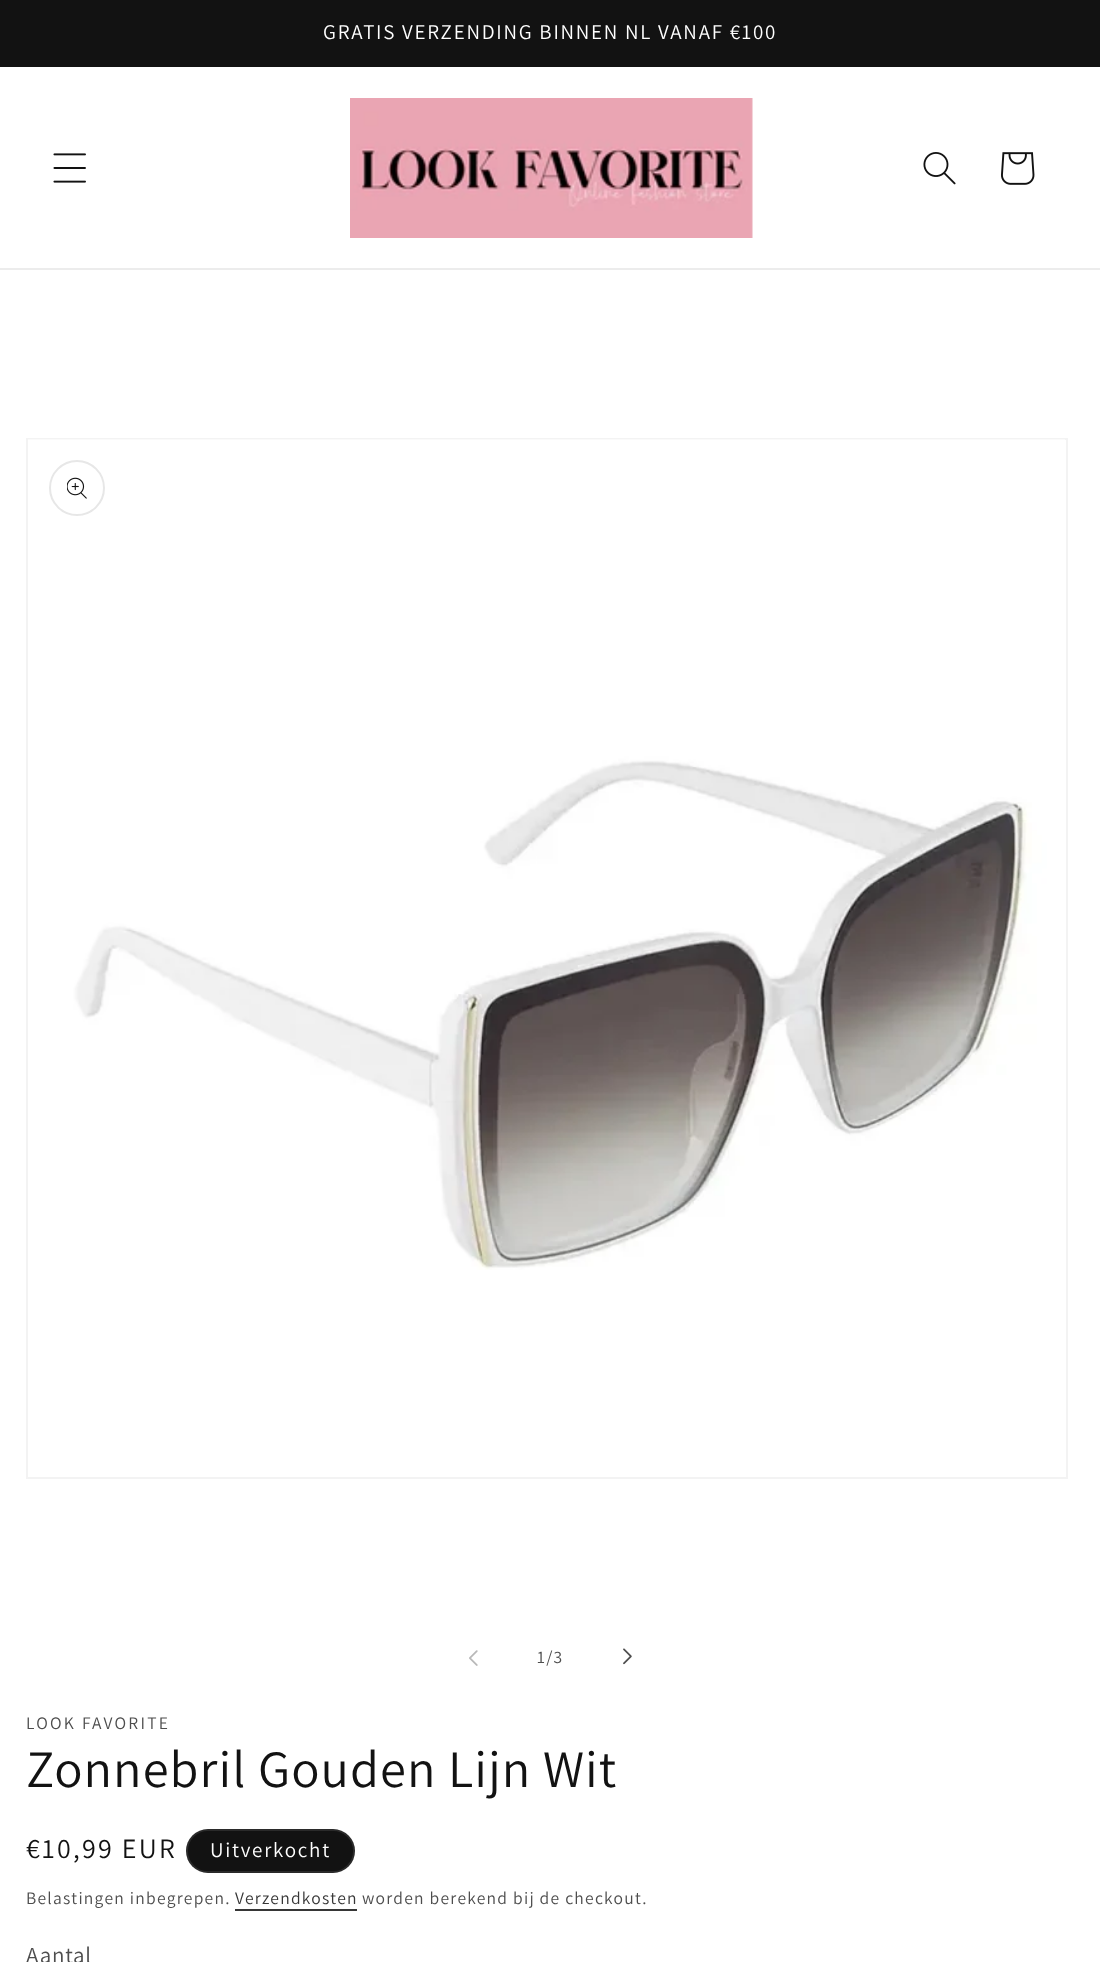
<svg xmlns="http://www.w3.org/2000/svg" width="1100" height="1962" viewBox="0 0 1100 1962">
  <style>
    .t1 { font: 21px Assistant; letter-spacing: 1.75px; fill: #fff; }
    .t2 { font: 17.5px Assistant; letter-spacing: 1.25px; fill: #4d4d4d; }
    .t3 { font: 17.5px Assistant; letter-spacing: 2.25px; fill: #4d4d4d; }
    .t4 { font: 52.5px Assistant; letter-spacing: 1.05px; fill: #121212; }
    .t5 { font: 28px Assistant; letter-spacing: 2.25px; fill: #121212; }
    .t6 { font: 17.5px Assistant; letter-spacing: 1.25px; fill: #363636; }
    .t7 { font: 23px Assistant; letter-spacing: 0.75px; fill: #4d4d4d; }
  </style>
  <rect width="100%" height="100%" fill="#fff"/>
  <rect x="0" y="0" width="1100" height="67" fill="#121212"/>
  <text x="323" y="39" class="t1">GRATIS VERZENDING BINNEN NL VANAF €100</text>
  <rect x="0" y="268" width="1100" height="2" fill="#ececec"/>
  <image x="53" y="153" width="33" height="30" href="images/1.png"/>
  <image x="350" y="98" width="403" height="140" href="images/2.png"/>
  <image x="923" y="152" width="33" height="33" href="images/3.png"/>
  <image x="1001" y="152" width="34" height="33" href="images/4.png"/>
  <rect x="27" y="439" width="1040" height="1039" fill="none" stroke="#f3f3f3" stroke-width="2"/>
  <image x="28" y="439" width="1037" height="831" href="images/5.png"/>
  <circle cx="77" cy="488" r="27" fill="none" stroke="#e7e7e7" stroke-width="2"/>
  <image x="67" y="477" width="20" height="22" href="images/6.png"/>
  <image x="469" y="1650" width="9" height="16" href="images/7.png"/>
  <text x="537" y="1663" class="t2">1/3</text>
  <image x="623" y="1648" width="9" height="17" href="images/8.png"/>
  <text x="26" y="1729" class="t3">LOOK FAVORITE</text>
  <text x="26" y="1787" class="t4">Zonnebril Gouden Lijn Wit</text>
  <text x="26" y="1858" class="t5">€10,99 EUR</text>
  <rect x="186" y="1829" width="169" height="44" rx="22" fill="#121212"/>
  <rect x="187" y="1830" width="167" height="42" rx="21" fill="none" stroke="#ffffff1a" stroke-width="2"/>
  <text x="210" y="1857" class="t1">Uitverkocht</text>
  <text x="26" y="1904" class="t2">Belastingen inbegrepen.</text>
  <text x="235" y="1904" class="t6">Verzendkosten</text>
  <rect x="235" y="1909" width="122" height="2" fill="#363636"/>
  <text x="362" y="1904" class="t2">worden berekend bij de checkout.</text>
  <text x="26" y="1963" class="t7">Aantal</text>
</svg>
